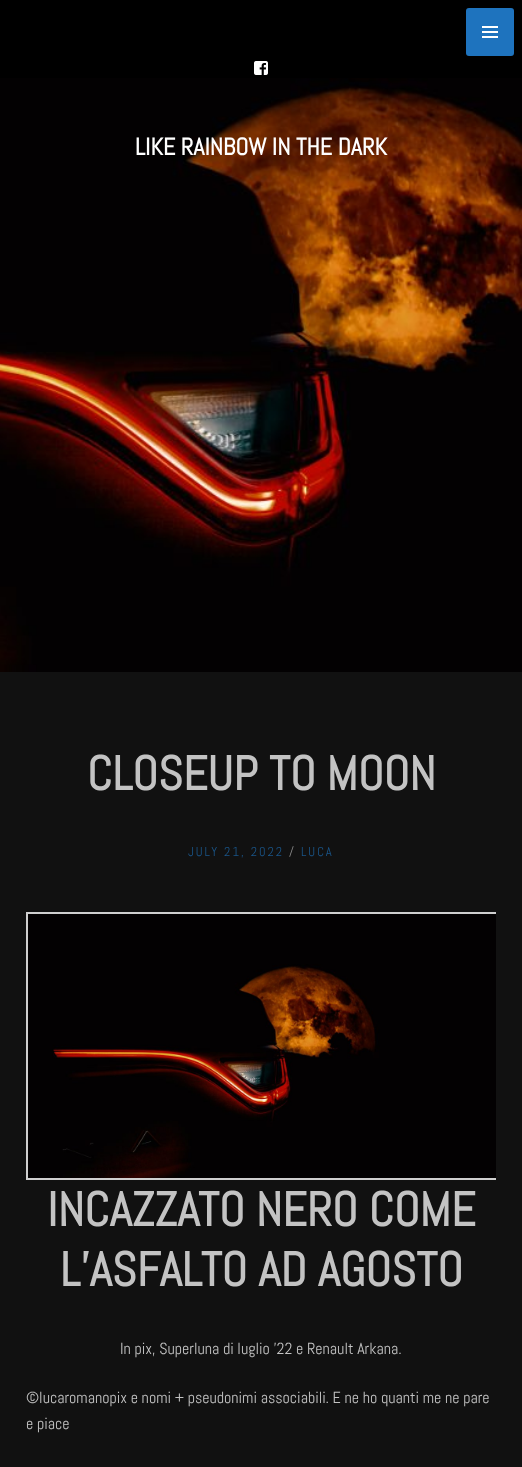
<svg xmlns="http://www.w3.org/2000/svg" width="522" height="1467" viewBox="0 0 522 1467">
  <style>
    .t1 { font: bold 24px Abel; fill: #fff; }
    .t2 { font: bold 48px Abel; fill: #c3c3c3; }
    .t3 { font: 12.75px Abel; letter-spacing: 2px; fill: #1a568a; }
    .t4 { font: 12.75px Abel; letter-spacing: 2px; fill: #8e8e8e; }
    .t5 { font: 16px Abel; fill: #c3c3c3; }
  </style>
  <defs>
    <clipPath id="clip1"><rect x="26" y="912" width="470" height="268"/></clipPath>
  </defs>
  <rect width="100%" height="100%" fill="#111"/>
  <rect x="0" y="0" width="522" height="78" fill="#000"/>
  <image x="0" y="78" width="522" height="594" href="images/1.png"/>
  <rect x="466" y="8" width="48" height="48" rx="3" fill="#1e73be"/>
  <image x="482" y="26" width="16" height="12" href="images/2.png"/>
  <image x="254" y="61" width="14" height="14" href="images/3.png"/>
  <text x="135" y="155" class="t1">LIKE RAINBOW IN THE DARK</text>
  <text x="87" y="790" class="t2">CLOSEUP TO MOON</text>
  <text x="188" y="856" class="t3">JULY 21, 2022</text>
  <text x="289" y="856" class="t4">/</text>
  <text x="301" y="856" class="t3">LUCA</text>
  <rect x="28" y="914" width="1" height="264" fill="#030102"/>
  <g clip-path="url(#clip1)">
    <rect x="27" y="913" width="472" height="266" fill="none" stroke="#cfcfcf" stroke-width="2"/>
  </g>
  <image x="29" y="914" width="467" height="264" href="images/4.png"/>
  <text x="47" y="1226" class="t2">INCAZZATO NERO COME</text>
  <text x="60" y="1286" class="t2">L’ASFALTO AD AGOSTO</text>
  <text x="120" y="1354" class="t5">In pix, Superluna di luglio ’22 e Renault Arkana.</text>
  <text x="26" y="1403" class="t5">©lucaromanopix e nomi + pseudonimi associabili. E ne ho quanti me ne pare</text>
  <text x="26" y="1429" class="t5">e piace</text>
</svg>
